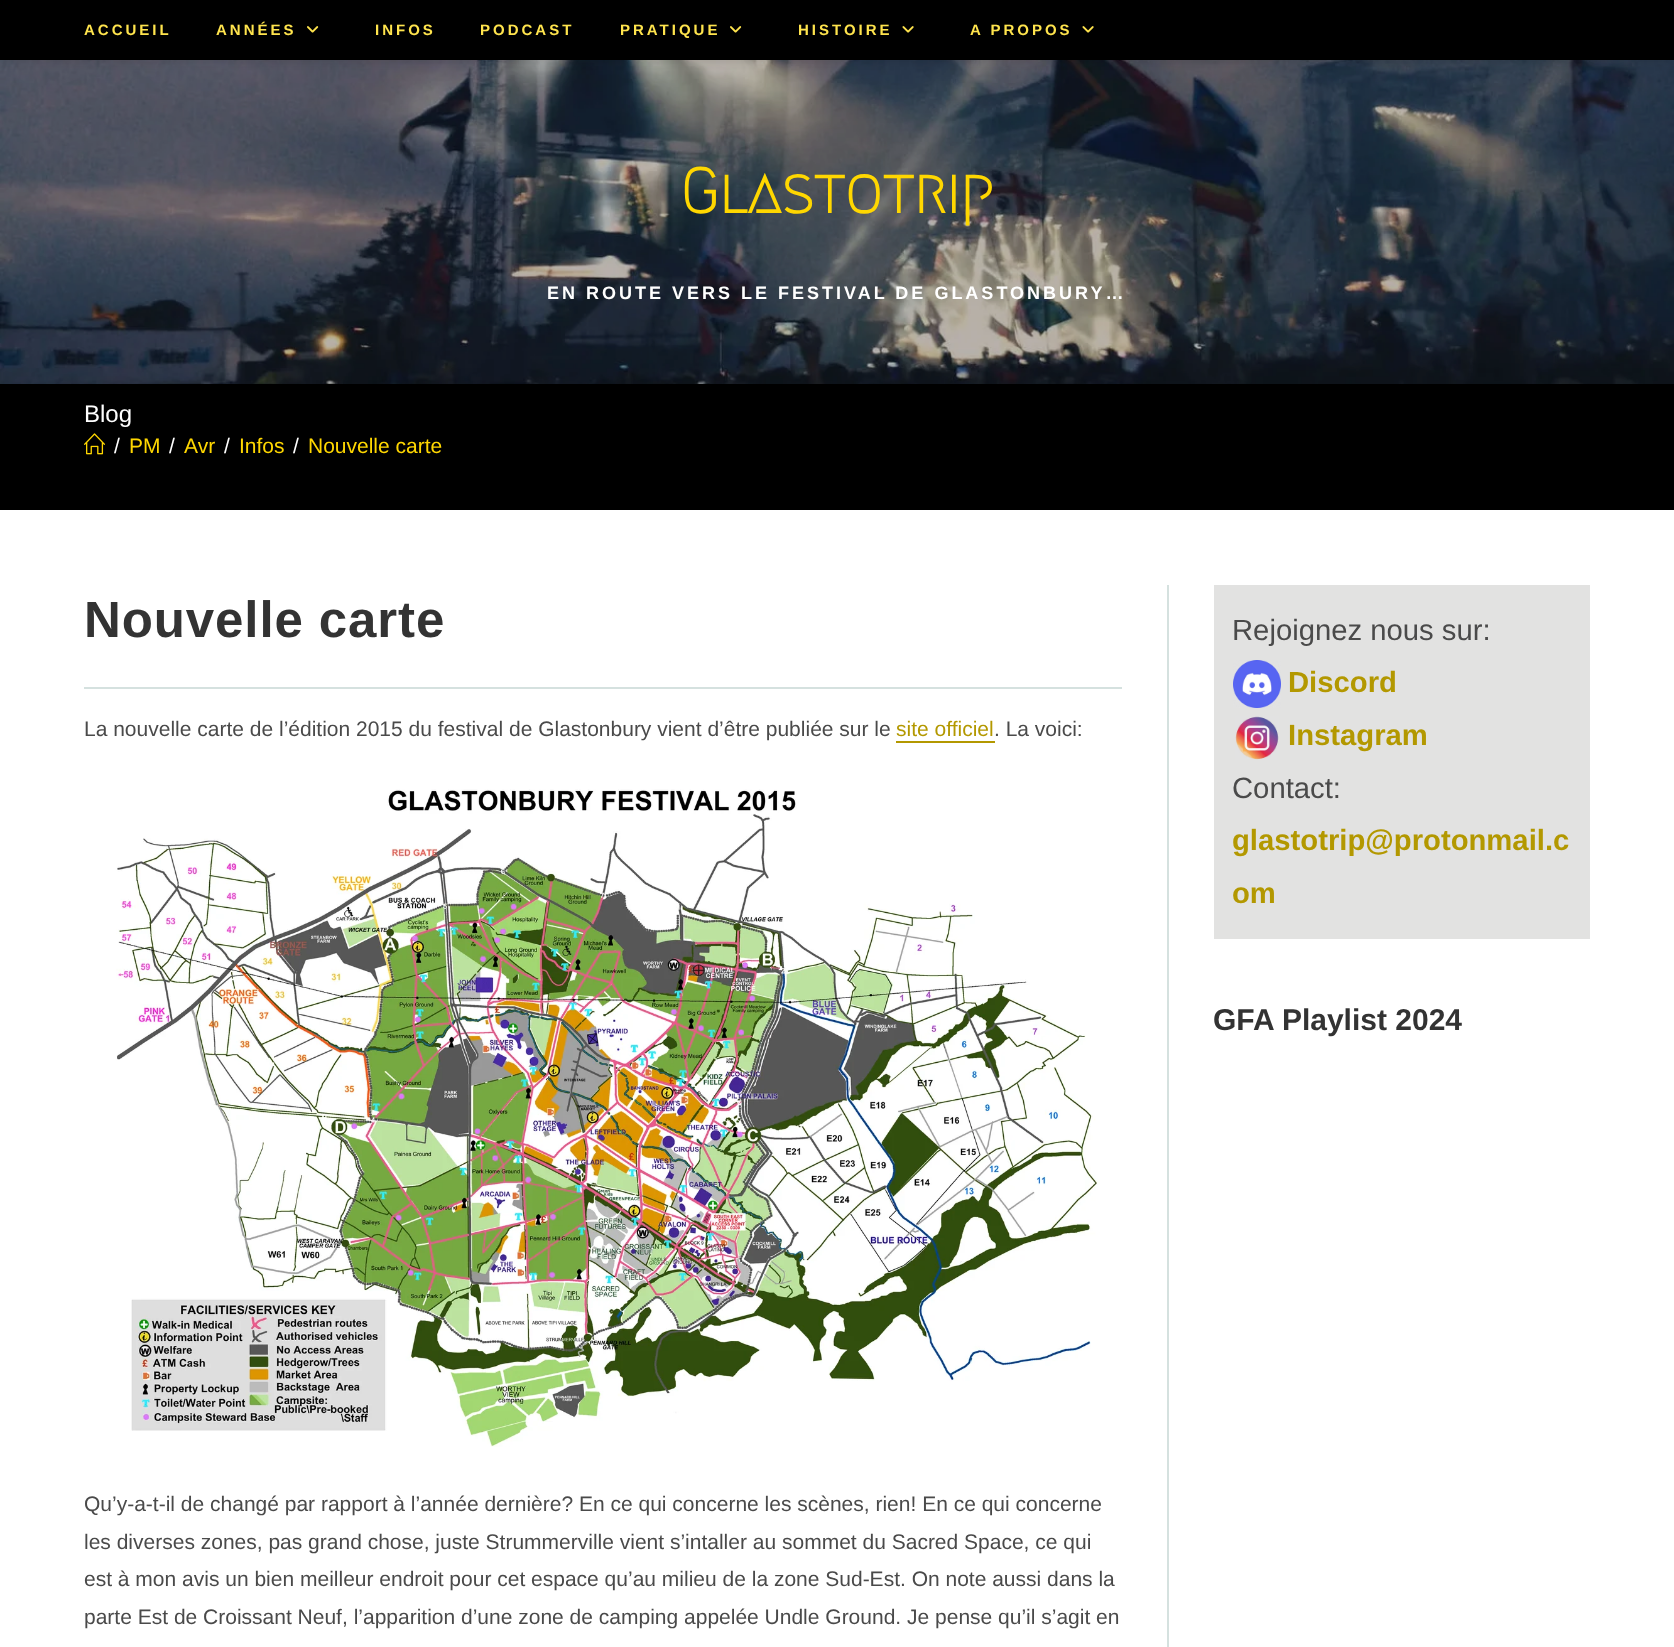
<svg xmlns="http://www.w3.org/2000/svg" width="1674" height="1647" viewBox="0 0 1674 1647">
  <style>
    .t1 { font: bold 15px Liberation Sans; letter-spacing: 3px; fill: #ffe44d; }
    .t2 { font: bold 63px Megrim; fill: #ffd700; }
    .t3 { font: bold 18px Liberation Sans; letter-spacing: 3px; fill: #fff; }
    .t4 { font: 24px Liberation Sans; fill: #fff; }
    .t5 { font: 21px Liberation Sans; fill: #fff; }
    .t6 { font: 21px Liberation Sans; fill: #ffd700; }
    .t7 { font: bold 51px Liberation Sans; letter-spacing: 0.9px; fill: #333; }
    .t8 { font: 21px Liberation Sans; fill: #4a4a4a; }
    .t9 { font: 21px Liberation Sans; fill: #b39800; }
    .t10 { font: 29.25px Liberation Sans; fill: #4a4a4a; }
    .t11 { font: bold 29.25px Liberation Sans; fill: #b39800; }
    .t12 { font: bold 30px Liberation Sans; fill: #333; }
  </style>
  <rect width="100%" height="100%" fill="#fff"/>
  <image x="0" y="60" width="1674" height="324" href="images/1.png"/>
  <rect x="0" y="2" width="1674" height="60" fill="#0000001a" filter="blur(4px)"/>
  <rect x="0" y="0" width="1674" height="60" fill="#000"/>
  <text x="84" y="35" class="t1">ACCUEIL</text>
  <text x="216" y="35" class="t1">ANNÉES</text>
  <image x="307" y="26" width="12" height="7" href="images/2.png"/>
  <text x="375" y="35" class="t1">INFOS</text>
  <text x="480" y="35" class="t1">PODCAST</text>
  <text x="620" y="35" class="t1">PRATIQUE</text>
  <image x="730" y="26" width="12" height="7" href="images/2.png"/>
  <text x="798" y="35" class="t1">HISTOIRE</text>
  <image x="902" y="26" width="12" height="7" href="images/3.png"/>
  <text x="970" y="35" class="t1">A PROPOS</text>
  <image x="1082" y="26" width="12" height="7" href="images/3.png"/>
  <text x="680" y="213" class="t2">Glastotrip</text>
  <text x="547" y="299" class="t3">EN ROUTE VERS LE FESTIVAL DE GLASTONBURY…</text>
  <rect x="0" y="384" width="1674" height="126" fill="#000"/>
  <text x="84" y="422" class="t4">Blog</text>
  <image x="84" y="433" width="21" height="22" href="images/4.png"/>
  <text x="114" y="453" class="t5">/</text>
  <text x="129" y="453" class="t6">PM</text>
  <text x="169" y="453" class="t5">/</text>
  <text x="184" y="453" class="t6">Avr</text>
  <text x="224" y="453" class="t5">/</text>
  <text x="239" y="453" class="t6">Infos</text>
  <text x="293" y="453" class="t5">/</text>
  <text x="308" y="453" class="t6">Nouvelle carte</text>
  <rect x="1167" y="585" width="2" height="1062" fill="#d5e1df"/>
  <rect x="84" y="687" width="1038" height="2" fill="#d5e1df"/>
  <text x="84" y="637" class="t7">Nouvelle carte</text>
  <text x="84" y="736" class="t8">La nouvelle carte de l’édition 2015 du festival de Glastonbury vient d’être publiée sur le</text>
  <text x="896" y="736" class="t9">site officiel</text>
  <rect x="896" y="741" width="99" height="2" fill="#b39800"/>
  <text x="994" y="736" class="t8">. La voici:</text>
  <image x="116" y="789" width="984" height="658" href="images/5.png"/>
  <text x="84" y="1511" class="t8">Qu’y-a-t-il de changé par rapport à l’année dernière? En ce qui concerne les scènes, rien! En ce qui concerne</text>
  <text x="84" y="1549" class="t8">les diverses zones, pas grand chose, juste Strummerville vient s’intaller au sommet du Sacred Space, ce qui</text>
  <text x="84" y="1586" class="t8">est à mon avis un bien meilleur endroit pour cet espace qu’au milieu de la zone Sud-Est. On note aussi dans la</text>
  <text x="84" y="1624" class="t8">parte Est de Croissant Neuf, l’apparition d’une zone de camping appelée Undle Ground. Je pense qu’il s’agit en</text>
  <rect x="1214" y="585" width="376" height="354" fill="#e2e2e1"/>
  <text x="1232" y="640" class="t10">Rejoignez nous sur:</text>
  <image x="1233" y="660" width="48" height="48" href="images/6.png"/>
  <text x="1288" y="692" class="t11">Discord</text>
  <image x="1235" y="716" width="44" height="44" href="images/7.png"/>
  <text x="1288" y="745" class="t11">Instagram</text>
  <text x="1232" y="798" class="t10">Contact:</text>
  <text x="1232" y="850" class="t11">glastotrip@protonmail.c</text>
  <text x="1232" y="903" class="t11">om</text>
  <text x="1213" y="1030" class="t12">GFA Playlist 2024</text>
</svg>
